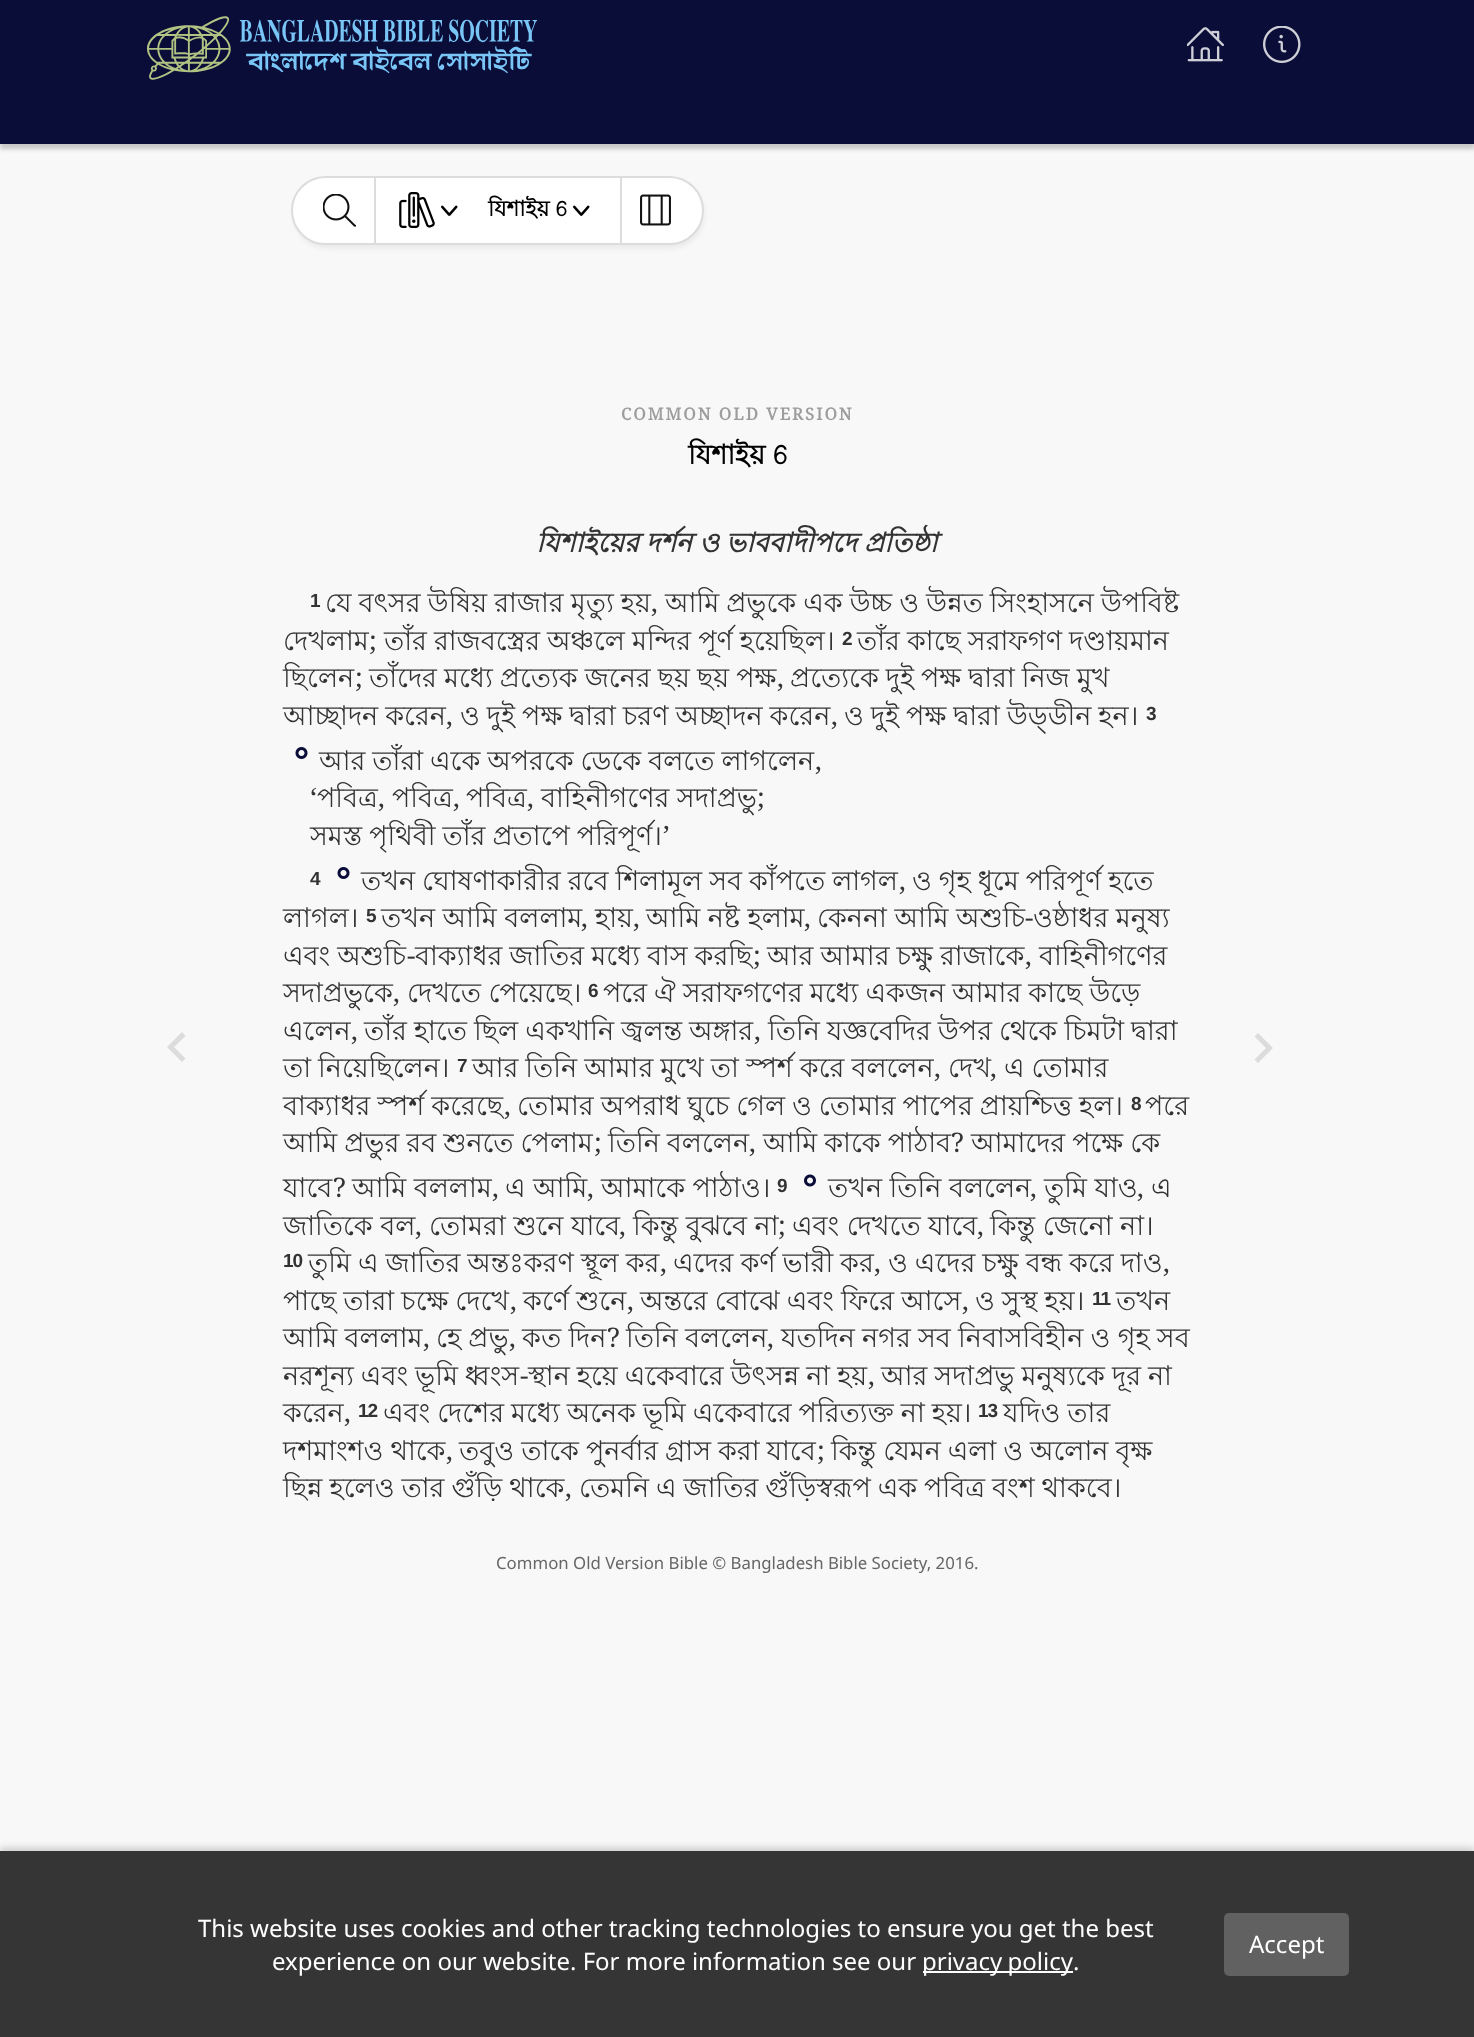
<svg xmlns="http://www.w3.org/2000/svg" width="1474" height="2037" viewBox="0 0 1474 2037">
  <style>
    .t1 { font: bold 21.5px Lohit Bengali; fill: #000; }
    .t2 { font: bold 16.8px Noto Serif; letter-spacing: 2px; fill: #9d9d9d; }
    .t3 { font: bold 27px Lohit Bengali; fill: #000; }
    .t4 { font: italic bold 27px Lohit Bengali; fill: #333; }
    .t5 { font: bold 19px Liberation Sans; letter-spacing: -1px; fill: #333; }
    .t6 { font: 27px Lohit Bengali; fill: #333; }
    .t7 { font: 27px Noto Serif; fill: #333; }
    .t8 { font: 16.8px Noto Sans; fill: #666; }
    .t9 { font: 24px Noto Sans; fill: #fff; }
  </style>
  <rect width="100%" height="100%" fill="#f8f8f8"/>
  <rect x="0" y="-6" width="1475" height="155" fill="#00000033" filter="blur(2px)"/>
  <rect x="0" y="0" width="1474" height="144" fill="#0a0d38"/>
  <image x="147" y="16" width="390" height="64" href="images/1.png"/>
  <image x="1187" y="27" width="37" height="35" href="images/2.png"/>
  <image x="1263" y="26" width="38" height="37" href="images/3.png"/>
  <rect x="293" y="180" width="412" height="69" rx="34.5" fill="#0000000d" filter="blur(2px)"/>
  <rect x="292" y="177" width="411" height="67" rx="33.5" fill="#fff" stroke="#dcdcdc" stroke-width="2"/>
  <rect x="374" y="177" width="2" height="66" fill="#dcdcdc"/>
  <image x="323" y="194" width="33" height="33" href="images/4.png"/>
  <image x="399" y="192" width="36" height="36" href="images/5.png"/>
  <image x="441" y="205" width="17" height="11" href="images/6.png"/>
  <text x="488" y="216" class="t1">যিশাইয় 6</text>
  <image x="573" y="205" width="17" height="11" href="images/6.png"/>
  <rect x="620" y="177" width="2" height="66" fill="#dcdcdc"/>
  <image x="640" y="194" width="31" height="32" href="images/7.png"/>
  <path d="M185.5 1058.5L174 1047L185.5 1036L182 1032L167 1047L182 1062Z" fill="#dcdcdc"/>
  <text x="621" y="420" class="t2">COMMON OLD VERSION</text>
  <text x="688" y="464" class="t3">যিশাইয় 6</text>
  <text x="536" y="552" word-spacing="-0.5" class="t4">যিশাইয়ের দর্শন ও ভাববাদীপদে প্রতিষ্ঠা</text>
  <text x="310" y="607" class="t5">1</text>
  <text x="325" y="612" word-spacing="-0.5" class="t6">যে বৎসর উষিয় রাজার মৃত্যু হয়</text>
  <text x="665" y="612" word-spacing="-0.5" class="t6">আমি প্রভুকে এক উচ্চ ও উন্নত সিংহাসনে উপবিষ্ট</text>
  <text x="651" y="612" class="t7">,</text>
  <text x="283" y="650" class="t6">দেখলাম</text>
  <text x="369" y="650" class="t7">;</text>
  <text x="384" y="650" word-spacing="-0.5" class="t6">তাঁর রাজবস্ত্রের অঞ্চলে মন্দির পূর্ণ হয়েছিল।</text>
  <text x="842" y="645" class="t5">2</text>
  <text x="857" y="650" word-spacing="-0.5" class="t6">তাঁর কাছে সরাফগণ দণ্ডায়মান</text>
  <text x="283" y="687" class="t6">ছিলেন</text>
  <text x="355" y="687" class="t7">;</text>
  <text x="369" y="687" word-spacing="-0.5" class="t6">তাঁদের মধ্যে প্রত্যেক জনের ছয় ছয় পক্ষ</text>
  <text x="777" y="687" class="t7">,</text>
  <text x="790" y="687" word-spacing="-0.5" class="t6">প্রত্যেকে দুই পক্ষ দ্বারা নিজ মুখ</text>
  <text x="283" y="725" word-spacing="-0.5" class="t6">আচ্ছাদন করেন</text>
  <text x="460" y="725" word-spacing="-0.5" class="t6">ও দুই পক্ষ দ্বারা চরণ অচ্ছাদন করেন</text>
  <text x="844" y="725" word-spacing="-0.5" class="t6">ও দুই পক্ষ দ্বারা উড্‌ডীন হন।</text>
  <text x="1146" y="720" class="t5">3</text>
  <text x="446" y="725" class="t7">,</text>
  <text x="831" y="725" class="t7">,</text>
  <image x="295" y="747" width="13" height="12" href="images/8.png"/>
  <text x="319" y="770" word-spacing="-0.5" class="t6">আর তাঁরা একে অপরকে ডেকে বলতে লাগলেন</text>
  <text x="815" y="770" class="t7">,</text>
  <text x="310" y="807" class="t7">‘</text>
  <text x="317" y="807" class="t6">পবিত্র</text>
  <text x="378" y="807" class="t7">,</text>
  <text x="392" y="807" class="t6">পবিত্র</text>
  <text x="453" y="807" class="t7">,</text>
  <text x="466" y="807" class="t6">পবিত্র</text>
  <text x="527" y="807" class="t7">,</text>
  <text x="541" y="807" class="t6">বাহিনীগণের সদাপ্রভু</text>
  <text x="757" y="807" class="t7">;</text>
  <text x="310" y="845" word-spacing="-0.5" class="t6">সমস্ত পৃথিবী তাঁর প্রতাপে পরিপূর্ণ।</text>
  <text x="663" y="845" class="t7">’</text>
  <text x="310" y="885" class="t5">4</text>
  <image x="337" y="867" width="13" height="12" href="images/8.png"/>
  <text x="361" y="890" word-spacing="-0.5" class="t6">তখন ঘোষণাকারীর রবে শিলামূল সব কাঁপতে লাগল</text>
  <text x="912" y="890" word-spacing="-0.5" class="t6">ও গৃহ ধূমে পরিপূর্ণ হতে</text>
  <text x="899" y="890" class="t7">,</text>
  <text x="283" y="927" class="t6">লাগল।</text>
  <text x="366" y="922" class="t5">5</text>
  <text x="381" y="927" class="t6">তখন আমি বললাম</text>
  <text x="595" y="927" class="t6">হায়</text>
  <text x="646" y="927" class="t6">আমি নষ্ট হলাম</text>
  <text x="817" y="927" class="t6">কেননা আমি অশুচি</text>
  <text x="1025" y="927" class="t7">-</text>
  <text x="1033" y="927" class="t6">ওষ্ঠাধর মনুষ্য</text>
  <text x="581" y="927" class="t7">,</text>
  <text x="633" y="927" class="t7">,</text>
  <text x="804" y="927" class="t7">,</text>
  <text x="283" y="965" word-spacing="-0.5" class="t6">এবং অশুচি</text>
  <text x="407" y="965" class="t7">-</text>
  <text x="415" y="965" word-spacing="-0.5" class="t6">বাক্যাধর জাতির মধ্যে বাস করছি</text>
  <text x="753" y="965" class="t7">;</text>
  <text x="767" y="965" word-spacing="-0.5" class="t6">আর আমার চক্ষু রাজাকে</text>
  <text x="1039" y="965" class="t6">বাহিনীগণের</text>
  <text x="1025" y="965" class="t7">,</text>
  <text x="283" y="1002" class="t6">সদাপ্রভুকে</text>
  <text x="407" y="1002" class="t6">দেখতে পেয়েছে।</text>
  <text x="588" y="997" class="t5">6</text>
  <text x="603" y="1002" word-spacing="-0.5" class="t6">পরে ঐ সরাফগণের মধ্যে একজন আমার কাছে উড়ে</text>
  <text x="393" y="1002" class="t7">,</text>
  <text x="283" y="1040" class="t6">এলেন</text>
  <text x="351" y="1040" class="t7">,</text>
  <text x="364" y="1040" word-spacing="-0.5" class="t6">তাঁর হাতে ছিল একখানি জ্বলন্ত অঙ্গার</text>
  <text x="754" y="1040" class="t7">,</text>
  <text x="768" y="1040" word-spacing="-0.5" class="t6">তিনি যজ্ঞবেদির উপর থেকে চিমটা দ্বারা</text>
  <text x="283" y="1077" word-spacing="-0.5" class="t6">তা নিয়েছিলেন।</text>
  <text x="457" y="1072" class="t5">7</text>
  <text x="472" y="1077" word-spacing="-0.5" class="t6">আর তিনি আমার মুখে তা স্পর্শ করে বললেন</text>
  <text x="948" y="1077" class="t6">দেখ</text>
  <text x="1004" y="1077" word-spacing="-0.5" class="t6">এ তোমার</text>
  <text x="934" y="1077" class="t7">,</text>
  <text x="990" y="1077" class="t7">,</text>
  <text x="283" y="1115" word-spacing="-0.5" class="t6">বাক্যাধর স্পর্শ করেছে</text>
  <text x="517" y="1115" word-spacing="-0.5" class="t6">তোমার অপরাধ ঘুচে গেল ও তোমার পাপের প্রায়শ্চিত্ত হল।</text>
  <text x="1131" y="1110" class="t5">8</text>
  <text x="1145" y="1115" class="t6">পরে</text>
  <text x="504" y="1115" class="t7">,</text>
  <text x="283" y="1152" word-spacing="-0.5" class="t6">আমি প্রভুর রব শুনতে পেলাম</text>
  <text x="594" y="1152" class="t7">;</text>
  <text x="608" y="1152" word-spacing="-0.5" class="t6">তিনি বললেন</text>
  <text x="749" y="1152" class="t7">,</text>
  <text x="763" y="1152" word-spacing="-0.5" class="t6">আমি কাকে পাঠাব</text>
  <text x="951" y="1152" class="t7">?</text>
  <text x="971" y="1152" word-spacing="-0.5" class="t6">আমাদের পক্ষে কে</text>
  <text x="283" y="1197" class="t6">যাবে</text>
  <text x="333" y="1197" class="t7">?</text>
  <text x="352" y="1197" class="t6">আমি বললাম</text>
  <text x="492" y="1197" class="t7">,</text>
  <text x="505" y="1197" class="t6">এ আমি</text>
  <text x="587" y="1197" class="t7">,</text>
  <text x="601" y="1197" class="t6">আমাকে পাঠাও।</text>
  <text x="777" y="1192" class="t5">9</text>
  <image x="804" y="1174" width="12" height="13" href="images/9.png"/>
  <text x="828" y="1197" class="t6">তখন তিনি বললেন</text>
  <text x="1030" y="1197" class="t7">,</text>
  <text x="1044" y="1197" class="t6">তুমি যাও</text>
  <text x="1151" y="1197" class="t6">এ</text>
  <text x="1137" y="1197" class="t7">,</text>
  <text x="283" y="1235" class="t6">জাতিকে বল</text>
  <text x="415" y="1235" class="t7">,</text>
  <text x="429" y="1235" class="t6">তোমরা শুনে যাবে</text>
  <text x="619" y="1235" class="t7">,</text>
  <text x="633" y="1235" class="t6">কিন্তু বুঝবে না</text>
  <text x="778" y="1235" class="t7">;</text>
  <text x="792" y="1235" class="t6">এবং দেখতে যাবে</text>
  <text x="977" y="1235" class="t7">,</text>
  <text x="990" y="1235" class="t6">কিন্তু জেনো না।</text>
  <text x="283" y="1267" class="t5">10</text>
  <text x="308" y="1272" word-spacing="-0.5" class="t6">তুমি এ জাতির অন্তঃকরণ স্থূল কর</text>
  <text x="673" y="1272" word-spacing="-0.5" class="t6">এদের কর্ণ ভারী কর</text>
  <text x="888" y="1272" word-spacing="-0.5" class="t6">ও এদের চক্ষু বন্ধ করে দাও</text>
  <text x="660" y="1272" class="t7">,</text>
  <text x="874" y="1272" class="t7">,</text>
  <text x="1163" y="1272" class="t7">,</text>
  <text x="283" y="1310" word-spacing="-0.5" class="t6">পাছে তারা চক্ষে দেখে</text>
  <text x="523" y="1310" word-spacing="-0.5" class="t6">কর্ণে শুনে</text>
  <text x="640" y="1310" word-spacing="-0.5" class="t6">অন্তরে বোঝে এবং ফিরে আসে</text>
  <text x="975" y="1310" word-spacing="-0.5" class="t6">ও সুস্থ হয়।</text>
  <text x="1092" y="1305" class="t5">11</text>
  <text x="1116" y="1310" class="t6">তখন</text>
  <text x="510" y="1310" class="t7">,</text>
  <text x="627" y="1310" class="t7">,</text>
  <text x="962" y="1310" class="t7">,</text>
  <text x="283" y="1347" word-spacing="-0.25" class="t6">আমি বললাম</text>
  <text x="423" y="1347" class="t7">,</text>
  <text x="436" y="1347" word-spacing="-0.25" class="t6">হে প্রভু</text>
  <text x="509" y="1347" class="t7">,</text>
  <text x="522" y="1347" word-spacing="-0.25" class="t6">কত দিন</text>
  <text x="607" y="1347" class="t7">?</text>
  <text x="626" y="1347" word-spacing="-0.25" class="t6">তিনি বললেন</text>
  <text x="767" y="1347" class="t7">,</text>
  <text x="781" y="1347" word-spacing="-0.25" class="t6">যতদিন নগর সব নিবাসবিহীন ও গৃহ সব</text>
  <text x="283" y="1385" word-spacing="-0.5" class="t6">নরশূন্য এবং ভূমি ধ্বংস</text>
  <text x="520" y="1385" class="t7">-</text>
  <text x="528" y="1385" word-spacing="-0.5" class="t6">স্থান হয়ে একেবারে উৎসন্ন না হয়</text>
  <text x="881" y="1385" word-spacing="-0.5" class="t6">আর সদাপ্রভু মনুষ্যকে দূর না</text>
  <text x="868" y="1385" class="t7">,</text>
  <text x="283" y="1422" class="t6">করেন</text>
  <text x="344" y="1422" class="t7">,</text>
  <text x="358" y="1417" class="t5">12</text>
  <text x="383" y="1422" word-spacing="-0.5" class="t6">এবং দেশের মধ্যে অনেক ভূমি একেবারে পরিত্যক্ত না হয়।</text>
  <text x="978" y="1417" class="t5">13</text>
  <text x="1003" y="1422" word-spacing="-0.5" class="t6">যদিও তার</text>
  <text x="283" y="1460" word-spacing="-0.5" class="t6">দশমাংশও থাকে</text>
  <text x="446" y="1460" class="t7">,</text>
  <text x="459" y="1460" word-spacing="-0.5" class="t6">তবুও তাকে পুনর্বার গ্রাস করা যাবে</text>
  <text x="817" y="1460" class="t7">;</text>
  <text x="831" y="1460" word-spacing="-0.5" class="t6">কিন্তু যেমন এলা ও অলোন বৃক্ষ</text>
  <text x="283" y="1497" word-spacing="-0.5" class="t6">ছিন্ন হলেও তার গুঁড়ি থাকে</text>
  <text x="565" y="1497" class="t7">,</text>
  <text x="579" y="1497" word-spacing="-0.5" class="t6">তেমনি এ জাতির গুঁড়িস্বরূপ এক পবিত্র বংশ থাকবে।</text>
  <text x="496" y="1569" class="t8">Common Old Version Bible © Bangladesh Bible Society, 2016.</text>
  <path d="M1254.5 1059.5L1266 1048L1254.5 1036.5L1258 1033L1273 1048L1258 1063Z" fill="#dcdcdc"/>
  <rect x="0" y="1847" width="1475" height="186" fill="#00000026" filter="blur(3px)"/>
  <rect x="0" y="1851" width="1474" height="186" fill="#353535"/>
  <text x="198" y="1937" class="t9">This website uses cookies and other tracking technologies to ensure you get the best</text>
  <text x="272" y="1970" class="t9">experience on our website. For more information see our</text>
  <rect x="923" y="1971" width="150" height="2" fill="#fff"/>
  <text x="922" y="1970" word-spacing="-1" class="t9">privacy policy</text>
  <text x="1073" y="1970" class="t9">.</text>
  <rect x="1224" y="1913" width="125" height="63" rx="5" fill="#616161"/>
  <text x="1249" y="1953" class="t9">Accept</text>
</svg>
